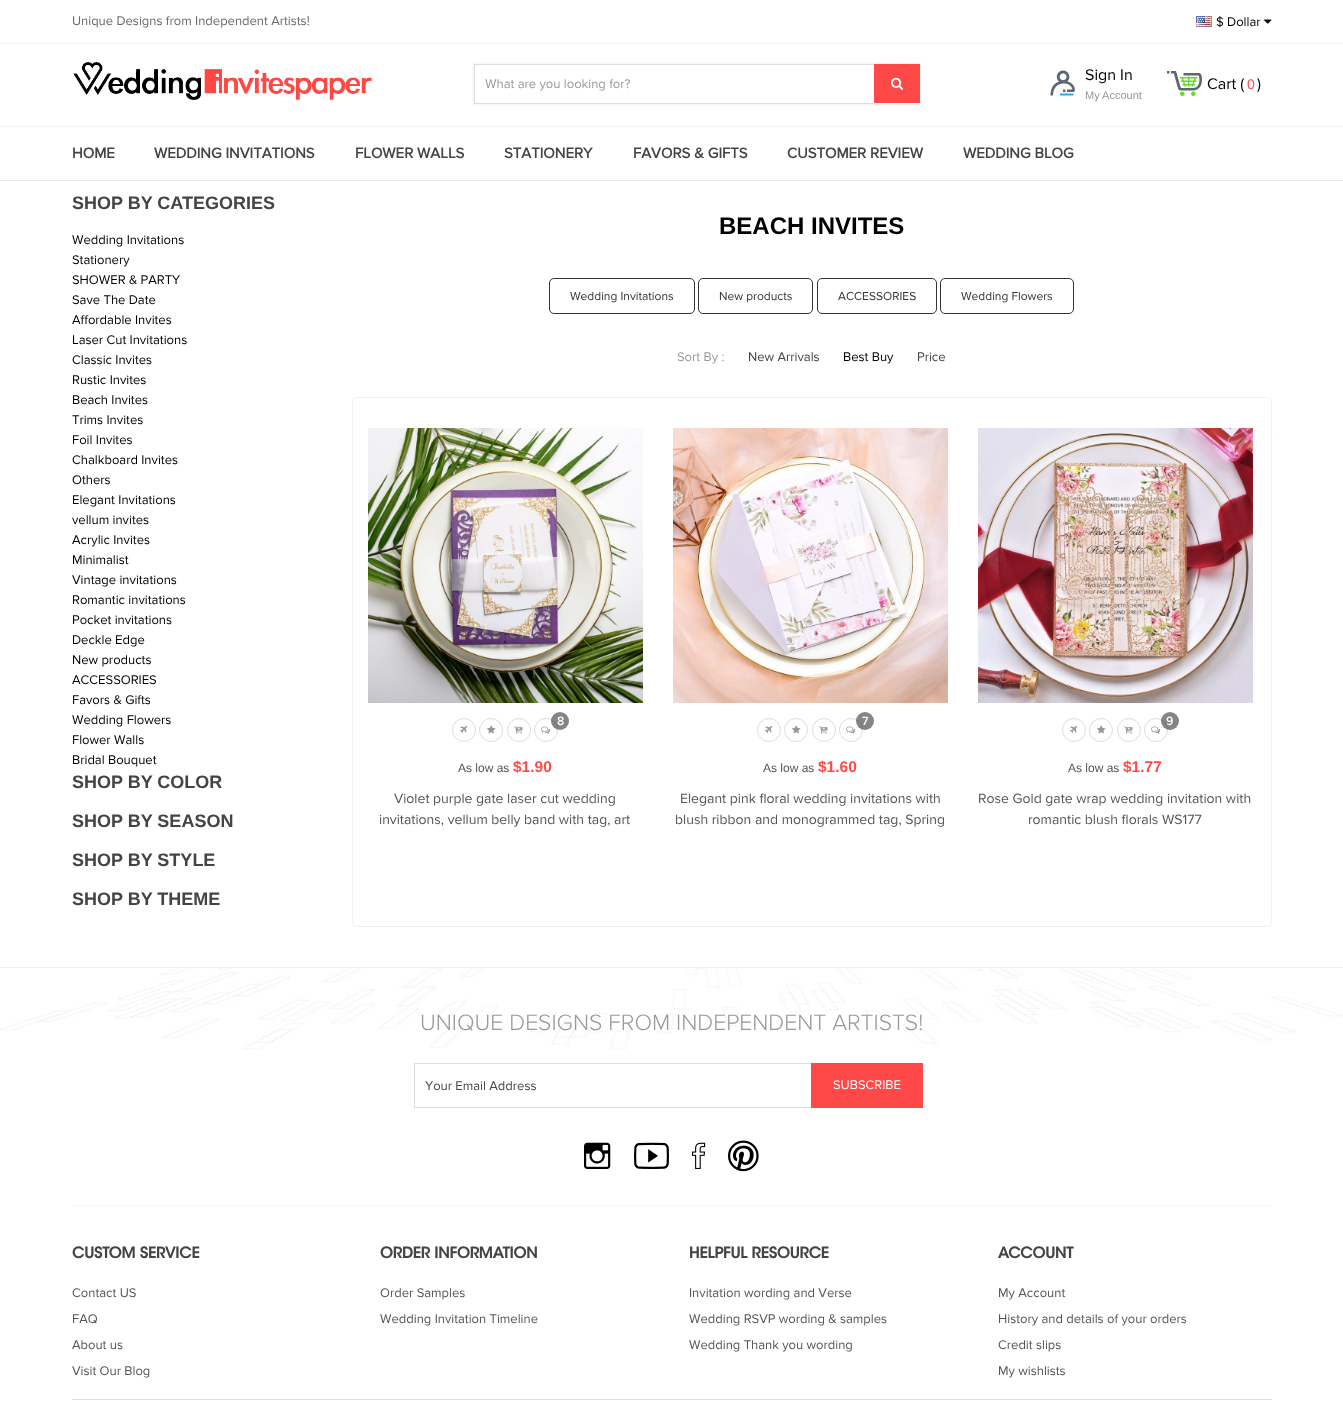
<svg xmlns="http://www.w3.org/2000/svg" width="1343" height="1402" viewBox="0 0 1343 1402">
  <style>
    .t1 { font: 13px Proxima Nova; fill: #696969; }
    .t2 { font: 13px Proxima Nova; fill: #000; }
    .t3 { font: 13px Proxima Nova; fill: #999; }
    .t4 { font: 16px Proxima Nova; fill: #000; }
    .t5 { font: 11px Liberation Sans; fill: #919699; }
    .t6 { font: 14px Liberation Sans; fill: #ff4949; }
    .t7 { font: bold 15px Proxima Nova; fill: #444; }
    .t8 { font: bold 18px Liberation Sans; fill: #444; }
    .t9 { font: bold 24px Liberation Sans; fill: #000; }
    .t10 { font: 12px Proxima Nova; fill: #333; }
    .t11 { font: 13px Proxima Nova; fill: #444; }
    .t12 { font: bold 12px Proxima Nova; fill: #fff; }
    .t13 { font: 12px Liberation Sans; fill: #555; }
    .t14 { font: bold 15.5px Liberation Sans; fill: #ff4949; }
    .t15 { font: 14px Proxima Nova; fill: #555; }
    .t16 { font: 300 23px Proxima Nova; fill: #999; }
    .t17 { font: 13px Proxima Nova; fill: #fff; }
    .t18 { font: bold 15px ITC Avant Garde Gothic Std; fill: #444; }
    .t19 { font: 13px Proxima Nova; fill: #555; }
  </style>
  <rect width="100%" height="100%" fill="#fff"/>
  <rect x="0" y="180" width="1343" height="1" fill="#eaeaea"/>
  <rect x="0" y="126" width="1343" height="1" fill="#f2f2f2"/>
  <rect x="0" y="43" width="1343" height="1" fill="#f2f2f2"/>
  <text x="72" y="25" class="t1">Unique Designs from Independent Artists!</text>
  <image x="1196" y="16" width="16" height="11" href="images/1.png"/>
  <text x="1216" y="26" class="t2">$ Dollar</text>
  <image x="1264" y="19" width="8" height="5" href="images/2.png"/>
  <image x="73" y="62" width="299" height="38" href="images/3.png"/>
  <rect x="473" y="63" width="448" height="42" rx="2" fill="none" stroke="#f8f8f8" stroke-width="2"/>
  <rect x="474" y="64" width="400" height="1" fill="#ddd"/>
  <rect x="474" y="103" width="400" height="1" fill="#ddd"/>
  <rect x="474" y="64" width="1" height="40" fill="#ddd"/>
  <text x="485" y="88" class="t3">What are you looking for?</text>
  <rect x="874" y="64" width="46" height="39" fill="#ff4949"/>
  <image x="891" y="77" width="12" height="13" href="images/4.png"/>
  <image x="1050" y="70" width="25" height="26" href="images/5.png"/>
  <text x="1085" y="80" class="t4">Sign In</text>
  <text x="1085" y="99" class="t5">My Account</text>
  <image x="1167" y="71" width="35" height="25" href="images/6.png"/>
  <text x="1207" y="89" class="t4">Cart (</text>
  <text x="1247" y="89" class="t6">0</text>
  <text x="1257" y="89" class="t4">)</text>
  <text x="72" y="158" class="t7">HOME</text>
  <text x="154" y="158" class="t7">WEDDING INVITATIONS</text>
  <text x="355" y="158" class="t7">FLOWER WALLS</text>
  <text x="504" y="158" class="t7">STATIONERY</text>
  <text x="633" y="158" class="t7">FAVORS &amp; GIFTS</text>
  <text x="787" y="158" class="t7">CUSTOMER REVIEW</text>
  <text x="963" y="158" class="t7">WEDDING BLOG</text>
  <text x="72" y="209" class="t8">SHOP BY CATEGORIES</text>
  <text x="72" y="244" class="t2">Wedding Invitations</text>
  <text x="72" y="264" class="t2">Stationery</text>
  <text x="72" y="284" class="t2">SHOWER &amp; PARTY</text>
  <text x="72" y="304" class="t2">Save The Date</text>
  <text x="72" y="324" class="t2">Affordable Invites</text>
  <text x="72" y="344" class="t2">Laser Cut Invitations</text>
  <text x="72" y="364" class="t2">Classic Invites</text>
  <text x="72" y="384" class="t2">Rustic Invites</text>
  <text x="72" y="404" class="t2">Beach Invites</text>
  <text x="72" y="424" class="t2">Trims Invites</text>
  <text x="72" y="444" class="t2">Foil Invites</text>
  <text x="72" y="464" class="t2">Chalkboard Invites</text>
  <text x="72" y="484" class="t2">Others</text>
  <text x="72" y="504" class="t2">Elegant Invitations</text>
  <text x="72" y="524" class="t2">vellum invites</text>
  <text x="72" y="544" class="t2">Acrylic Invites</text>
  <text x="72" y="564" class="t2">Minimalist</text>
  <text x="72" y="584" class="t2">Vintage invitations</text>
  <text x="72" y="604" class="t2">Romantic invitations</text>
  <text x="72" y="624" class="t2">Pocket invitations</text>
  <text x="72" y="644" class="t2">Deckle Edge</text>
  <text x="72" y="664" class="t2">New products</text>
  <text x="72" y="684" class="t2">ACCESSORIES</text>
  <text x="72" y="704" class="t2">Favors &amp; Gifts</text>
  <text x="72" y="724" class="t2">Wedding Flowers</text>
  <text x="72" y="744" class="t2">Flower Walls</text>
  <text x="72" y="764" class="t2">Bridal Bouquet</text>
  <text x="72" y="788" class="t8">SHOP BY COLOR</text>
  <text x="72" y="827" class="t8">SHOP BY SEASON</text>
  <text x="72" y="866" class="t8">SHOP BY STYLE</text>
  <text x="72" y="905" class="t8">SHOP BY THEME</text>
  <text x="719" y="234" class="t9">BEACH INVITES</text>
  <rect x="549.5" y="278.5" width="145" height="35" rx="4.5" fill="none" stroke="#333"/>
  <text x="570" y="300" class="t10">Wedding Invitations</text>
  <rect x="698.5" y="278.5" width="114" height="35" rx="4.5" fill="none" stroke="#333"/>
  <text x="719" y="300" class="t10">New products</text>
  <rect x="817.5" y="278.5" width="119" height="35" rx="4.5" fill="none" stroke="#333"/>
  <text x="838" y="300" class="t10">ACCESSORIES</text>
  <rect x="940.5" y="278.5" width="133" height="35" rx="4.5" fill="none" stroke="#333"/>
  <text x="961" y="300" class="t10">Wedding Flowers</text>
  <text x="677" y="361" class="t3">Sort By :</text>
  <text x="748" y="361" class="t11">New Arrivals</text>
  <text x="843" y="361" class="t2">Best Buy</text>
  <text x="917" y="361" class="t11">Price</text>
  <rect x="352.5" y="397.5" width="919" height="529" rx="4.5" fill="none" stroke="#f1f1f1"/>
  <image x="368" y="428" width="275" height="275" href="images/7.png"/>
  <circle cx="464" cy="730" r="11.5" fill="none" stroke="#ddd"/>
  <image x="460" y="725" width="8" height="8" href="images/8.png"/>
  <circle cx="491" cy="730" r="11.5" fill="none" stroke="#ddd"/>
  <image x="487" y="725" width="9" height="9" href="images/9.png"/>
  <circle cx="519" cy="730" r="11.5" fill="none" stroke="#ddd"/>
  <image x="514" y="726" width="9" height="8" href="images/10.png"/>
  <circle cx="546" cy="730" r="11.5" fill="none" stroke="#ddd"/>
  <image x="541" y="726" width="10" height="8" href="images/11.png"/>
  <circle cx="560" cy="721" r="9" fill="#33333399"/>
  <text x="557" y="725" class="t12">8</text>
  <text x="458" y="772" class="t13">As low as</text>
  <text x="513" y="772" class="t14">$1.90</text>
  <text x="394" y="803" class="t15">Violet purple gate laser cut wedding</text>
  <text x="379" y="824" class="t15">invitations, vellum belly band with tag, art</text>
  <image x="673" y="428" width="275" height="275" href="images/12.png"/>
  <circle cx="769" cy="730" r="11.5" fill="none" stroke="#ddd"/>
  <image x="765" y="725" width="8" height="8" href="images/8.png"/>
  <circle cx="796" cy="730" r="11.5" fill="none" stroke="#ddd"/>
  <image x="792" y="725" width="9" height="9" href="images/9.png"/>
  <circle cx="824" cy="730" r="11.5" fill="none" stroke="#ddd"/>
  <image x="819" y="726" width="9" height="8" href="images/10.png"/>
  <circle cx="851" cy="730" r="11.5" fill="none" stroke="#ddd"/>
  <image x="846" y="726" width="10" height="8" href="images/11.png"/>
  <circle cx="865" cy="721" r="9" fill="#33333399"/>
  <text x="862" y="725" class="t12">7</text>
  <text x="763" y="772" class="t13">As low as</text>
  <text x="818" y="772" class="t14">$1.60</text>
  <text x="680" y="803" class="t15">Elegant pink floral wedding invitations with</text>
  <text x="675" y="824" class="t15">blush ribbon and monogrammed tag, Spring</text>
  <image x="978" y="428" width="275" height="275" href="images/13.png"/>
  <circle cx="1074" cy="730" r="11.5" fill="none" stroke="#ddd"/>
  <image x="1070" y="725" width="8" height="8" href="images/8.png"/>
  <circle cx="1101" cy="730" r="11.5" fill="none" stroke="#ddd"/>
  <image x="1097" y="725" width="9" height="9" href="images/9.png"/>
  <circle cx="1129" cy="730" r="11.5" fill="none" stroke="#ddd"/>
  <image x="1124" y="726" width="9" height="8" href="images/10.png"/>
  <circle cx="1156" cy="730" r="11.5" fill="none" stroke="#ddd"/>
  <image x="1151" y="726" width="10" height="8" href="images/11.png"/>
  <circle cx="1170" cy="721" r="9" fill="#33333399"/>
  <text x="1166" y="725" class="t12">9</text>
  <text x="1068" y="772" class="t13">As low as</text>
  <text x="1123" y="772" class="t14">$1.77</text>
  <text x="978" y="803" class="t15">Rose Gold gate wrap wedding invitation with</text>
  <text x="1028" y="824" class="t15">romantic blush florals WS177</text>
  <image x="0" y="968" width="1343" height="82" href="images/14.png"/>
  <rect x="0" y="967" width="1343" height="1" fill="#f1f1f1"/>
  <text x="420" y="1030" class="t16">UNIQUE DESIGNS FROM INDEPENDENT ARTISTS!</text>
  <rect x="414.5" y="1063.5" width="399" height="44" fill="none" stroke="#ddd"/>
  <text x="425" y="1090" class="t11">Your Email Address</text>
  <rect x="811" y="1063" width="112" height="45" fill="#ff4949"/>
  <text x="833" y="1089" class="t17">SUBSCRIBE</text>
  <path d="M72 1205.5H1272" fill="none" stroke="#eee" stroke-dasharray="1 1"/>
  <image x="584" y="1142" width="27" height="27" href="images/15.png"/>
  <image x="634" y="1142" width="35" height="27" href="images/16.png"/>
  <image x="692" y="1142" width="14" height="27" href="images/17.png"/>
  <image x="728" y="1140" width="31" height="32" href="images/18.png"/>
  <text x="72" y="1258" class="t18">CUSTOM SERVICE</text>
  <text x="72" y="1297" class="t19">Contact US</text>
  <text x="72" y="1323" class="t19">FAQ</text>
  <text x="72" y="1349" class="t19">About us</text>
  <text x="72" y="1375" class="t19">Visit Our Blog</text>
  <text x="380" y="1258" class="t18">ORDER INFORMATION</text>
  <text x="380" y="1297" class="t19">Order Samples</text>
  <text x="380" y="1323" class="t19">Wedding Invitation Timeline</text>
  <text x="689" y="1258" class="t18">HELPFUL RESOURCE</text>
  <text x="689" y="1297" class="t19">Invitation wording and Verse</text>
  <text x="689" y="1323" class="t19">Wedding RSVP wording &amp; samples</text>
  <text x="689" y="1349" class="t19">Wedding Thank you wording</text>
  <text x="998" y="1258" class="t18">ACCOUNT</text>
  <text x="998" y="1297" class="t19">My Account</text>
  <text x="998" y="1323" class="t19">History and details of your orders</text>
  <text x="998" y="1349" class="t19">Credit slips</text>
  <text x="998" y="1375" class="t19">My wishlists</text>
  <rect x="72" y="1399" width="1200" height="1" fill="#ddd"/>
</svg>
